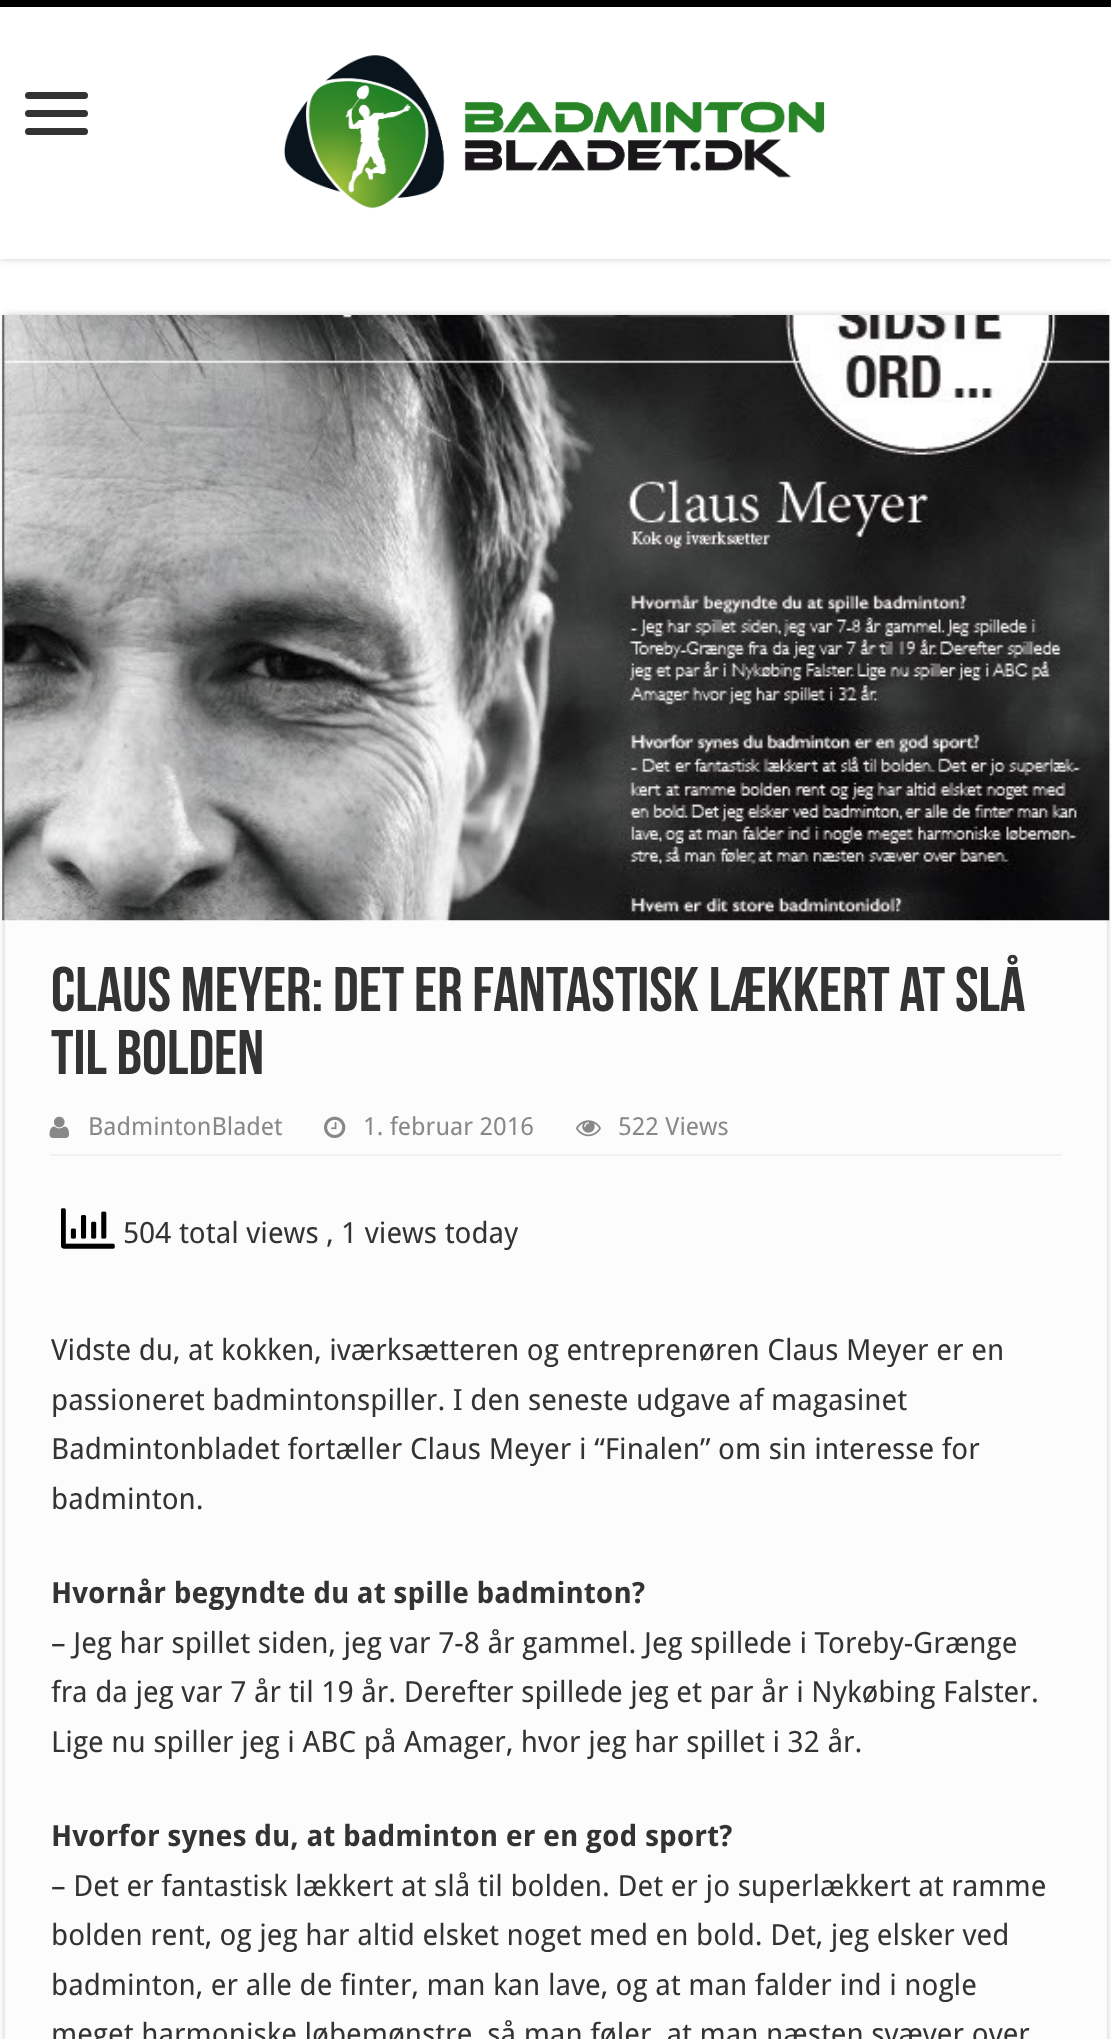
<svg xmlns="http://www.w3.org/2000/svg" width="1111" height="2039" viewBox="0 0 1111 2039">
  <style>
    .t1 { font: bold 63px Bebas Neue; fill: #333; }
    .t2 { font: 24.75px Droid Sans; fill: #888; }
    .t3 { font: 29.25px Droid Sans; fill: #333; }
    .t4 { font: bold 29.25px Droid Sans; fill: #333; }
  </style>
  <rect width="100%" height="100%" fill="#fff"/>
  <rect x="0" y="0" width="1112" height="259" fill="#cacaca" filter="blur(3.5px)"/>
  <rect x="0" y="7" width="1111" height="252" fill="#fff"/>
  <rect x="0" y="0" width="1111" height="7" fill="#000"/>
  <rect x="25" y="92" width="63" height="7" rx="3.5" fill="#333"/>
  <rect x="25" y="110" width="63" height="7" rx="3.5" fill="#333"/>
  <rect x="25" y="128" width="63" height="7" rx="3.5" fill="#333"/>
  <image x="284" y="55" width="541" height="154" href="images/1.png"/>
  <rect x="5" y="315" width="1102" height="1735" fill="#cacaca" filter="blur(3.5px)"/>
  <rect x="5" y="920" width="1102" height="1119" fill="#fcfcfc"/>
  <image x="2" y="315" width="1108" height="606" href="images/2.png"/>
  <text x="51" y="1011" class="t1">Claus Meyer: Det er fantastisk lækkert at slå</text>
  <text x="51" y="1074" class="t1">til bolden</text>
  <rect x="50" y="1154" width="1012" height="2" fill="#f2f2f2"/>
  <image x="49" y="1116" width="20" height="22" href="images/3.png"/>
  <text x="88" y="1135" class="t2">BadmintonBladet</text>
  <image x="324" y="1116" width="22" height="22" href="images/4.png"/>
  <text x="363" y="1135" class="t2">1. februar 2016</text>
  <image x="576" y="1120" width="25" height="17" href="images/5.png"/>
  <text x="618" y="1135" class="t2">522 Views</text>
  <image x="61" y="1208" width="54" height="41" href="images/6.png"/>
  <text x="123" y="1243" class="t3">504 total views , 1 views today</text>
  <text x="51" y="1360" class="t3">Vidste du, at kokken, iværksætteren og entreprenøren Claus Meyer er en</text>
  <text x="51" y="1410" class="t3">passioneret badmintonspiller. I den seneste udgave af magasinet</text>
  <text x="51" y="1459" class="t3">Badmintonbladet fortæller Claus Meyer i “Finalen” om sin interesse for</text>
  <text x="51" y="1509" class="t3">badminton.</text>
  <text x="51" y="1603" class="t4">Hvornår begyndte du at spille badminton?</text>
  <text x="51" y="1653" class="t3">– Jeg har spillet siden, jeg var 7-8 år gammel. Jeg spillede i Toreby-Grænge</text>
  <text x="51" y="1702" class="t3">fra da jeg var 7 år til 19 år. Derefter spillede jeg et par år i Nykøbing Falster.</text>
  <text x="51" y="1752" class="t3">Lige nu spiller jeg i ABC på Amager, hvor jeg har spillet i 32 år.</text>
  <text x="51" y="1846" class="t4">Hvorfor synes du, at badminton er en god sport?</text>
  <text x="51" y="1896" class="t3">– Det er fantastisk lækkert at slå til bolden. Det er jo superlækkert at ramme</text>
  <text x="51" y="1945" class="t3">bolden rent, og jeg har altid elsket noget med en bold. Det, jeg elsker ved</text>
  <text x="51" y="1995" class="t3">badminton, er alle de finter, man kan lave, og at man falder ind i nogle</text>
  <text x="51" y="2044" class="t3">meget harmoniske løbemønstre, så man føler, at man næsten svæver over</text>
</svg>
